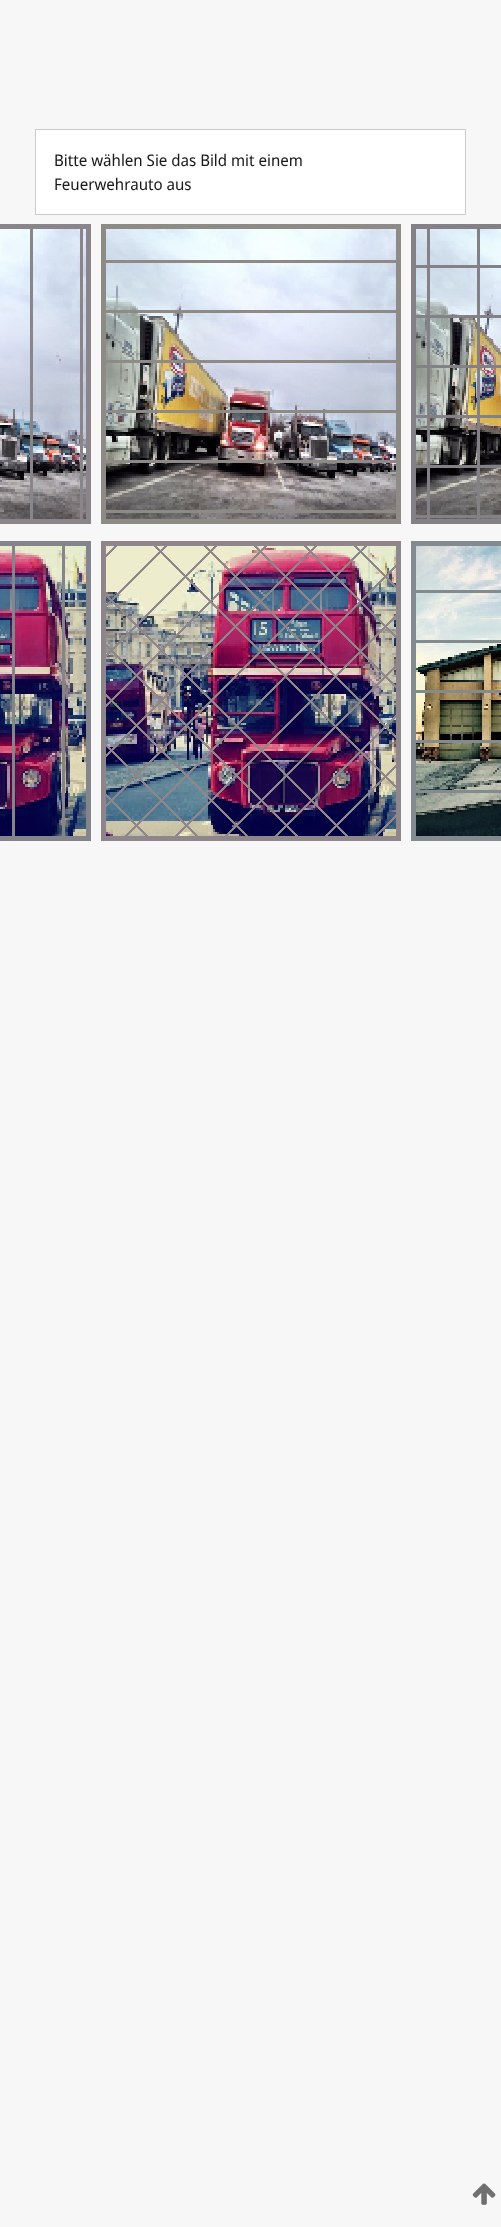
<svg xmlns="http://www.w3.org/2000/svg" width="501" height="2227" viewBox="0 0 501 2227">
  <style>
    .t1 { font: 16px Noto Sans Display; fill: #1a1a1a; }
  </style>
  <rect width="100%" height="100%" fill="#f7f7f7"/>
  <rect x="35.5" y="129.5" width="430" height="85" fill="#fff" stroke="#ccc"/>
  <text x="54" y="166" class="t1">Bitte wählen Sie das Bild mit einem</text>
  <text x="54" y="190" class="t1">Feuerwehrauto aus</text>
  <image x="0" y="224" width="91" height="300" href="images/1.png"/>
  <image x="101" y="224" width="300" height="300" href="images/2.png"/>
  <image x="411" y="224" width="90" height="300" href="images/3.png"/>
  <image x="0" y="541" width="91" height="300" href="images/4.png"/>
  <image x="101" y="541" width="300" height="300" href="images/5.png"/>
  <image x="411" y="541" width="90" height="300" href="images/6.png"/>
  <image x="472" y="2183" width="24" height="22" href="images/7.png"/>
</svg>
